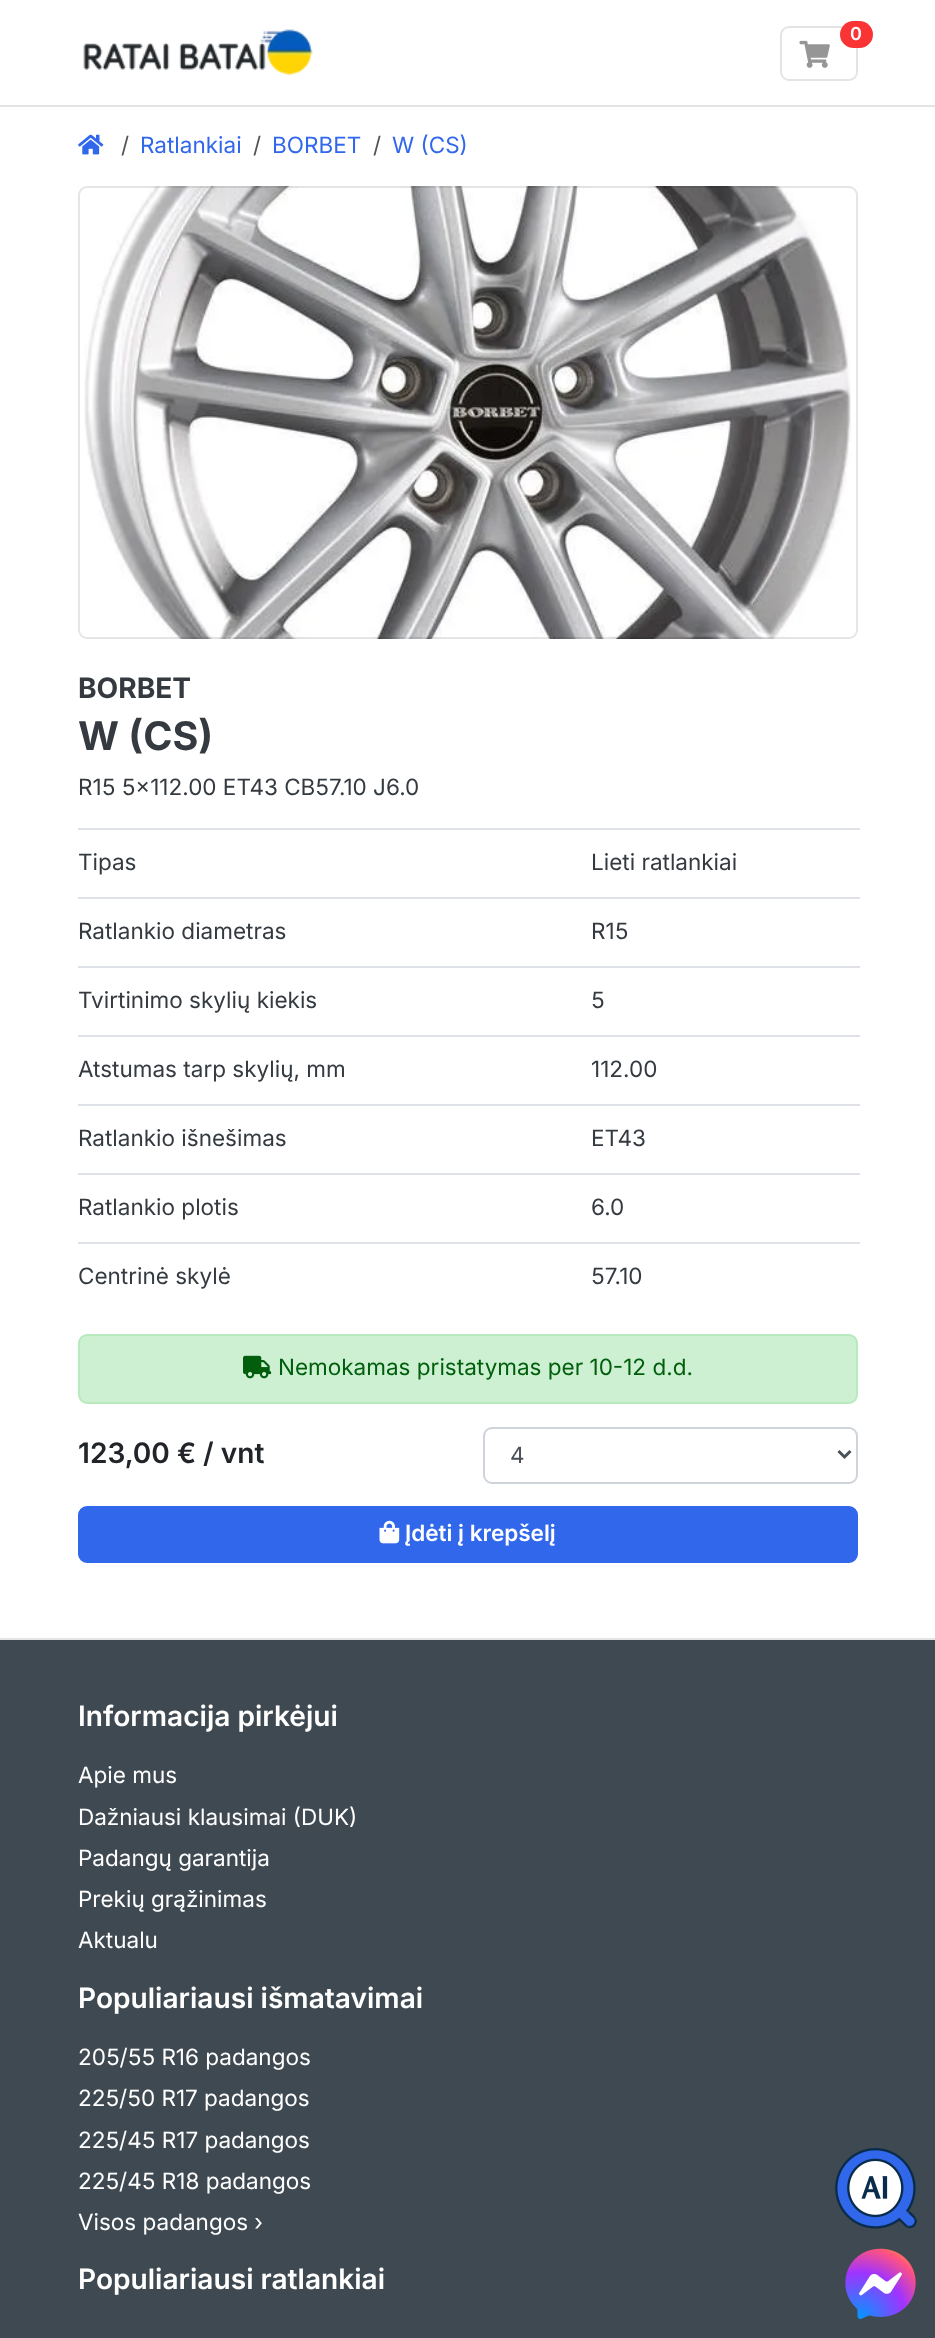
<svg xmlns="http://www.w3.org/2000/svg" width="935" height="2338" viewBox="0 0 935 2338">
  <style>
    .t1 { font: 600 18px Inter; fill: #fff; }
    .t2 { font: 22.5px Inter; fill: #545454; }
    .t3 { font: 22.5px Inter; fill: #3167eb; }
    .t4 { font: bold 28.1px Inter; fill: #343a40; }
    .t5 { font: bold 39.5px Inter; fill: #343a40; }
    .t6 { font: 22.5px Inter; fill: #343a40; }
    .t7 { font: 22.5px Inter; fill: #005e0c; }
    .t8 { font: 600 28.1px Inter; fill: #212529; }
    .t9 { font: 22.5px Inter; fill: #495057; }
    .t10 { font: 600 22.5px Inter; fill: #fff; }
    .t11 { font: 600 28.1px Inter; fill: #fff; }
    .t12 { font: 22.5px Inter; fill: #fff; }
  </style>
  <rect width="100%" height="100%" fill="#fff"/>
  <rect x="0" y="105" width="935" height="2" fill="#e4e4e4"/>
  <image x="83" y="29" width="230" height="47" href="images/1.png"/>
  <rect x="781" y="27" width="76" height="53" rx="8" fill="none" stroke="#e4e4e4" stroke-width="2"/>
  <image x="799" y="40" width="31" height="28" href="images/2.png"/>
  <rect x="840" y="21" width="33" height="27" rx="13.5" fill="#fa3434"/>
  <text x="850" y="40" class="t1">0</text>
  <image x="78" y="134" width="26" height="21" href="images/3.png"/>
  <text x="121" y="153" class="t2">/</text>
  <text x="140" y="153" class="t3">Ratlankiai</text>
  <text x="253" y="153" class="t2">/</text>
  <text x="272" y="153" class="t3">BORBET</text>
  <text x="373" y="153" class="t2">/</text>
  <text x="392" y="153" class="t3">W (CS)</text>
  <image x="84" y="186" width="767" height="453" href="images/4.png"/>
  <rect x="79" y="187" width="778" height="451" rx="8" fill="none" stroke="#0000001a" stroke-width="2"/>
  <text x="78" y="698" class="t4">BORBET</text>
  <text x="78" y="750" class="t5">W (CS)</text>
  <text x="78" y="795" class="t6">R15 5x112.00 ET43 CB57.10 J6.0</text>
  <text x="78" y="870" class="t6">Tipas</text>
  <rect x="78" y="828" width="782" height="2" fill="#dee2e6"/>
  <text x="591" y="870" class="t6">Lieti ratlankiai</text>
  <text x="78" y="939" class="t6">Ratlankio diametras</text>
  <rect x="78" y="897" width="782" height="2" fill="#dee2e6"/>
  <text x="591" y="939" class="t6">R15</text>
  <text x="78" y="1008" class="t6">Tvirtinimo skylių kiekis</text>
  <rect x="78" y="966" width="782" height="2" fill="#dee2e6"/>
  <text x="591" y="1008" class="t6">5</text>
  <text x="78" y="1077" class="t6">Atstumas tarp skylių, mm</text>
  <rect x="78" y="1035" width="782" height="2" fill="#dee2e6"/>
  <text x="591" y="1077" class="t6">112.00</text>
  <text x="78" y="1146" class="t6">Ratlankio išnešimas</text>
  <rect x="78" y="1104" width="782" height="2" fill="#dee2e6"/>
  <text x="591" y="1146" class="t6">ET43</text>
  <text x="78" y="1215" class="t6">Ratlankio plotis</text>
  <rect x="78" y="1173" width="782" height="2" fill="#dee2e6"/>
  <text x="591" y="1215" class="t6">6.0</text>
  <text x="78" y="1284" class="t6">Centrinė skylė</text>
  <rect x="78" y="1242" width="782" height="2" fill="#dee2e6"/>
  <text x="591" y="1284" class="t6">57.10</text>
  <rect x="79" y="1335" width="778" height="68" rx="8" fill="#ccf0d1" stroke="#b8eabe" stroke-width="2"/>
  <image x="243" y="1355" width="29" height="24" href="images/5.png"/>
  <text x="278" y="1375" class="t7">Nemokamas pristatymas per 10-12 d.d.</text>
  <text x="78" y="1463" class="t8">123,00 € / vnt</text>
  <rect x="484" y="1428" width="373" height="55" rx="8" fill="none" stroke="#ced4da" stroke-width="2"/>
  <path d="M838.5 1451L844.5 1457L850.5 1451" fill="none" stroke="#495057" stroke-width="3"/>
  <text x="510" y="1463" class="t9">4</text>
  <rect x="79" y="1507" width="778" height="55" rx="8" fill="#3167eb" stroke="#3167eb" stroke-width="2"/>
  <image x="379" y="1520" width="21" height="24" href="images/6.png"/>
  <text x="405" y="1541" class="t10">Įdėti į krepšelį</text>
  <rect x="0" y="1640" width="935" height="698" fill="#3f4951"/>
  <rect x="0" y="1638" width="935" height="2" fill="#e4e4e4"/>
  <text x="78" y="1726" class="t11">Informacija pirkėjui</text>
  <text x="78" y="1783" class="t12">Apie mus</text>
  <text x="78" y="1825" class="t12">Dažniausi klausimai (DUK)</text>
  <text x="78" y="1866" class="t12">Padangų garantija</text>
  <text x="78" y="1907" class="t12">Prekių grąžinimas</text>
  <text x="78" y="1948" class="t12">Aktualu</text>
  <text x="78" y="2008" class="t11">Populiariausi išmatavimai</text>
  <text x="78" y="2065" class="t12">205/55 R16 padangos</text>
  <text x="78" y="2106" class="t12">225/50 R17 padangos</text>
  <text x="78" y="2148" class="t12">225/45 R17 padangos</text>
  <text x="78" y="2189" class="t12">225/45 R18 padangos</text>
  <text x="78" y="2230" class="t12">Visos padangos ›</text>
  <text x="78" y="2289" class="t11">Populiariausi ratlankiai</text>
  <image x="835" y="2148" width="82" height="81" href="images/7.png"/>
  <image x="845" y="2248" width="71" height="71" href="images/8.png"/>
</svg>
